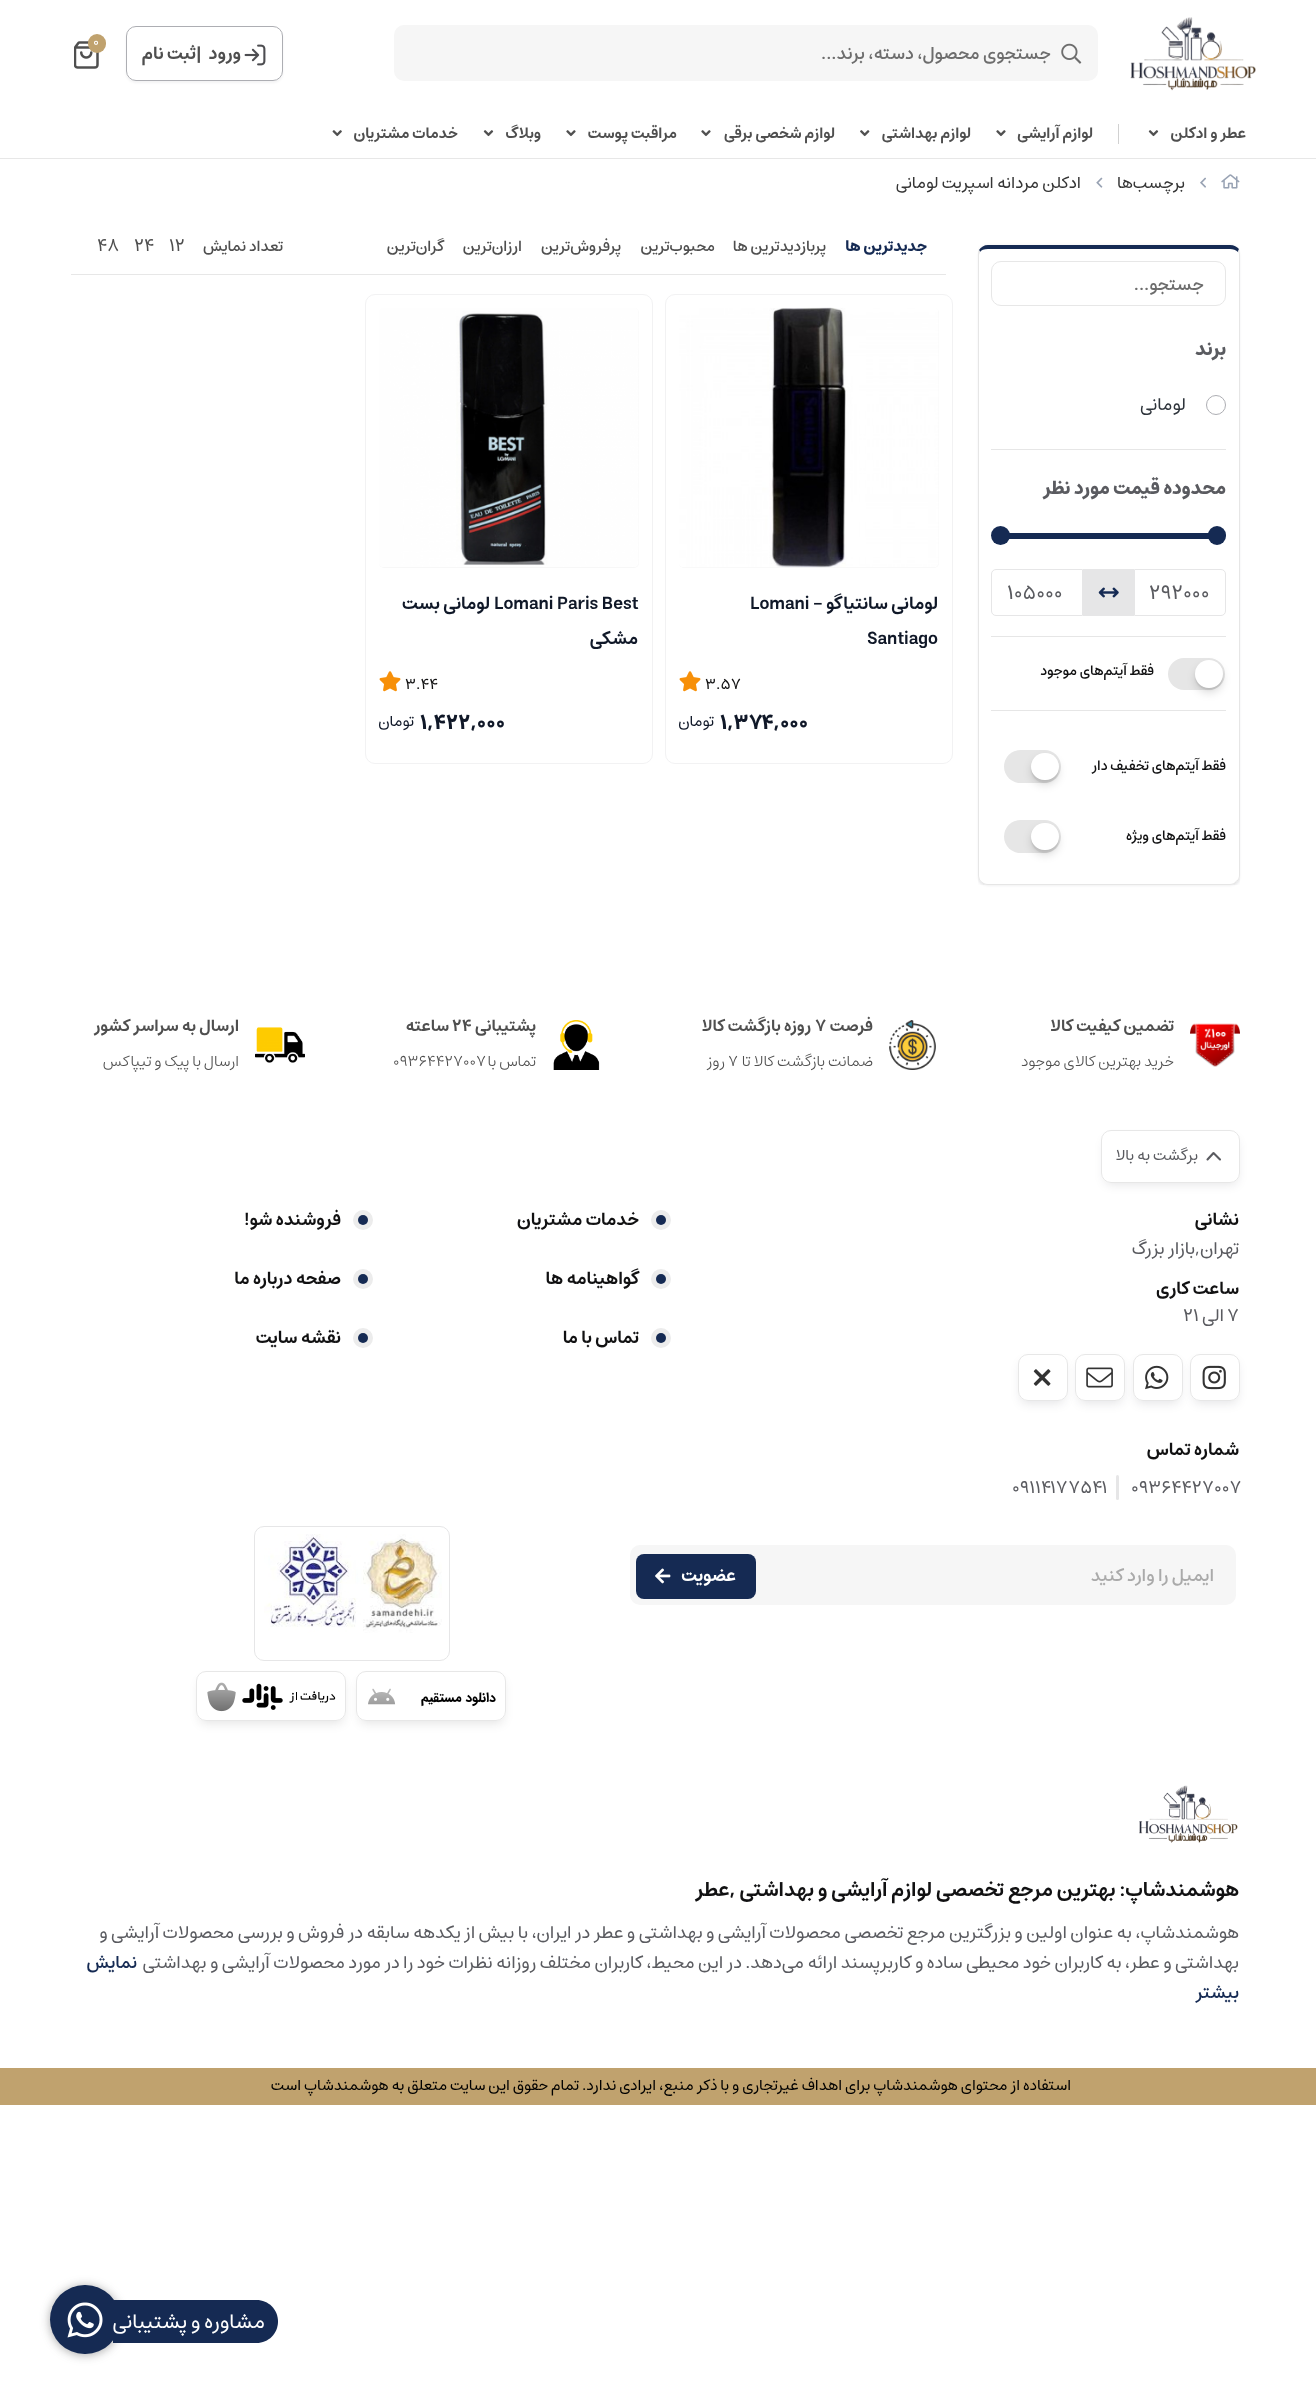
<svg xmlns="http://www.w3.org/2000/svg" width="1316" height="2403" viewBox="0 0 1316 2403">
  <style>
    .t1 { font: 500 17.5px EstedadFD; direction: rtl; fill: #6d6d6d; }
    .t2 { font: 13.75px EstedadFD; fill: #fff; }
    .t3 { font: 600 17.5px EstedadFD; direction: rtl; fill: #4f4f4f; }
    .t4 { font: 600 17.5px EstedadFD; fill: #4f4f4f; }
    .t5 { font: 600 15px EstedadFD; direction: rtl; fill: #4f4f4f; }
    .t6 { font: 16.25px EstedadFD; direction: rtl; fill: #353535; }
    .t7 { font: bold 18.75px EstedadFD; direction: rtl; fill: #5a5b60; }
    .t8 { font: 17.5px EstedadFD; direction: rtl; fill: #2e343b; }
    .t9 { font: 20px EstedadFD; fill: #5a5b60; }
    .t10 { font: 500 13.75px EstedadFD; direction: rtl; fill: #111112; }
    .t11 { font: bold 15px EstedadFD; direction: rtl; fill: #152a53; }
    .t12 { font: 500 15px EstedadFD; direction: rtl; fill: #4f4f4f; }
    .t13 { font: 17.5px EstedadFD; fill: #4f4f4f; }
    .t14 { font: 600 17.5px EstedadFD; direction: rtl; fill: #101828; }
    .t15 { font: 600 17.5px EstedadFD; fill: #101828; }
    .t16 { font: 15px EstedadFD; fill: #111112; }
    .t17 { font: bold 20px EstedadFD; fill: #101828; }
    .t18 { font: 15px EstedadFD; direction: rtl; fill: #101828; }
    .t19 { font: 600 16.25px EstedadFD; direction: rtl; fill: #4f4f4f; }
    .t20 { font: 300 15px EstedadFD; direction: rtl; fill: #4f4f4f; }
    .t21 { font: 600 16.25px EstedadFD; fill: #4f4f4f; }
    .t22 { font: 300 15px EstedadFD; fill: #4f4f4f; }
    .t23 { font: 15px EstedadFD; direction: rtl; fill: #5a5b60; }
    .t24 { font: 600 17.5px EstedadFD; direction: rtl; fill: #111112; }
    .t25 { font: 17.5px EstedadFD; direction: rtl; fill: #5a5b60; }
    .t26 { font: 17.5px EstedadFD; fill: #5a5b60; }
    .t27 { font: 500 17.5px EstedadFD; direction: rtl; fill: #aaa; }
    .t28 { font: 600 17.5px EstedadFD; direction: rtl; fill: #fff; }
    .t29 { font: 600 20px EstedadFD; direction: rtl; fill: #111112; }
    .t30 { font: 500 17.5px EstedadFD; direction: rtl; fill: #152a53; }
    .t31 { font: 15px EstedadFD; direction: rtl; fill: #000; }
    .t32 { font: 20px EstedadFD; direction: rtl; fill: #fff; }
  </style>
  <defs>
    <clipPath id="clip1"><path d="M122 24H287V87H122ZM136 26H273C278.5 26 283 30.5 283 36V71C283 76.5 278.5 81 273 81H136C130.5 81 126 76.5 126 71V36C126 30.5 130.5 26 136 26Z" clip-rule="evenodd"/></clipPath>
    <clipPath id="clip2"><rect x="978" y="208" width="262" height="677"/></clipPath>
    <clipPath id="clip3"><path d="M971 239H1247V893H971ZM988 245H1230C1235.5 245 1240 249.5 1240 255V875C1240 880.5 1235.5 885 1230 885H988C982.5 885 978 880.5 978 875V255C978 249.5 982.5 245 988 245Z" clip-rule="evenodd"/></clipPath>
    <clipPath id="clip4"><path d="M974 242H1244V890H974ZM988 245H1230C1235.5 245 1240 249.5 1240 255V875C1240 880.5 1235.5 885 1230 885H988C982.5 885 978 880.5 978 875V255C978 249.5 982.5 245 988 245Z" clip-rule="evenodd"/></clipPath>
    <clipPath id="clip5"><rect x="1008" y="575" width="58" height="35"/></clipPath>
    <clipPath id="clip6"><rect x="379" y="586" width="260" height="63"/></clipPath>
    <clipPath id="clip7"><path d="M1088 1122H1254V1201H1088ZM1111 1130H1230C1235.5 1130 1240 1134.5 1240 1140V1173C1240 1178.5 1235.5 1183 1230 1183H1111C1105.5 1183 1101 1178.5 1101 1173V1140C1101 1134.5 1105.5 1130 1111 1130Z" clip-rule="evenodd"/></clipPath>
    <clipPath id="clip8"><path d="M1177 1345H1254V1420H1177ZM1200 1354H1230C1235.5 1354 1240 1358.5 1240 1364V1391C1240 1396.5 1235.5 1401 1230 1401H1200C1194.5 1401 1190 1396.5 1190 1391V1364C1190 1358.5 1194.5 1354 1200 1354Z" clip-rule="evenodd"/></clipPath>
    <clipPath id="clip9"><path d="M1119 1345H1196V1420H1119ZM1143 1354H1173C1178.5 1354 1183 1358.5 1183 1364V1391C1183 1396.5 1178.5 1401 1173 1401H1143C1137.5 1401 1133 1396.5 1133 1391V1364C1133 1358.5 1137.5 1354 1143 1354Z" clip-rule="evenodd"/></clipPath>
    <clipPath id="clip10"><path d="M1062 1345H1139V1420H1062ZM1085 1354H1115C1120.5 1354 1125 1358.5 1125 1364V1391C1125 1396.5 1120.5 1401 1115 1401H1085C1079.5 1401 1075 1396.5 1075 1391V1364C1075 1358.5 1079.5 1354 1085 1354Z" clip-rule="evenodd"/></clipPath>
    <clipPath id="clip11"><path d="M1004 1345H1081V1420H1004ZM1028 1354H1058C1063.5 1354 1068 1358.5 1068 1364V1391C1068 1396.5 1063.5 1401 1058 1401H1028C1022.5 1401 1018 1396.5 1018 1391V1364C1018 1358.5 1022.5 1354 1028 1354Z" clip-rule="evenodd"/></clipPath>
    <clipPath id="clip12"><path d="M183 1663H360V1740H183ZM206 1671H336C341.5 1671 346 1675.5 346 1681V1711C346 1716.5 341.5 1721 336 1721H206C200.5 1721 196 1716.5 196 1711V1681C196 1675.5 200.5 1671 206 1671Z" clip-rule="evenodd"/></clipPath>
    <clipPath id="clip13"><path d="M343 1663H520V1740H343ZM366 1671H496C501.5 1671 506 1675.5 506 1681V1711C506 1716.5 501.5 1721 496 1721H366C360.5 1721 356 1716.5 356 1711V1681C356 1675.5 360.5 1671 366 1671Z" clip-rule="evenodd"/></clipPath>
  </defs>
  <rect width="100%" height="100%" fill="#fff"/>
  <rect x="0" y="158" width="1316" height="1" fill="#e7e7e7"/>
  <image x="1130" y="17" width="126" height="74" href="images/1.png"/>
  <rect x="394" y="25" width="704" height="56" rx="10" fill="#f6f6f6"/>
  <image x="1061" y="43" width="21" height="21" href="images/2.png"/>
  <text x="1051" y="59" class="t1">جستجوی محصول، دسته، برند...</text>
  <image x="74" y="41" width="25" height="28" href="images/3.png"/>
  <rect x="88" y="34" width="18" height="19" rx="9" fill="#c0a26e"/>
  <text x="93" y="46" class="t2">0</text>
  <g clip-path="url(#clip1)">
    <rect x="126" y="28" width="157" height="55" rx="10" fill="#1018280d" filter="blur(1px)"/>
  </g>
  <rect x="126.5" y="26.5" width="156" height="54" rx="9.5" fill="none" stroke="#adaeb3"/>
  <image x="244" y="44" width="22" height="22" href="images/4.png"/>
  <text x="241" y="59" class="t3">ورود</text>
  <text x="196" y="59" class="t4">|</text>
  <text x="196" y="59" class="t3">ثبت نام</text>
  <text x="1246" y="138" class="t5">عطر و ادکلن</text>
  <image x="1148" y="130" width="11" height="7" href="images/5.png"/>
  <rect x="1118" y="124" width="1" height="20" fill="#d1d1d1"/>
  <text x="1093" y="138" class="t5">لوازم آرایشی</text>
  <image x="996" y="130" width="10" height="7" href="images/6.png"/>
  <text x="971" y="138" class="t5">لوازم بهداشتی</text>
  <image x="860" y="130" width="10" height="7" href="images/7.png"/>
  <text x="835" y="138" class="t5">لوازم شخصی برقی</text>
  <image x="701" y="130" width="10" height="7" href="images/6.png"/>
  <text x="677" y="138" class="t5">مراقبت پوست</text>
  <image x="566" y="130" width="10" height="7" href="images/6.png"/>
  <text x="541" y="138" class="t5">وبلاگ</text>
  <image x="483" y="130" width="11" height="7" href="images/5.png"/>
  <text x="458" y="138" class="t5">خدمات مشتریان</text>
  <image x="332" y="130" width="10" height="7" href="images/8.png"/>
  <image x="1221" y="174" width="19" height="15" href="images/9.png"/>
  <image x="1200" y="177" width="6" height="11" href="images/10.png"/>
  <text x="1185" y="188" class="t6">برچسب‌ها</text>
  <image x="1096" y="177" width="7" height="11" href="images/11.png"/>
  <text x="1081" y="188" class="t6">ادکلن مردانه اسپریت لومانی</text>
  <g clip-path="url(#clip2)">
    <g clip-path="url(#clip3)">
      <rect x="978" y="246" width="262" height="640" rx="10" fill="#1018281a" filter="blur(2px)"/>
    </g>
  </g>
  <g clip-path="url(#clip4)">
    <rect x="978" y="246" width="262" height="640" rx="10" fill="#1018280f" filter="blur(1px)"/>
  </g>
  <path d="M988 245C984 245 981 247 979 250L980 252C981 250 984 249 988 249H1230C1233 249 1236 250 1238 252L1239 249C1237 247 1234 245 1230 245Z" fill="#152a53"/>
  <path d="M1240 875V255C1240 253 1239 251 1239 249L1238 252C1239 253 1239 254 1239 255V875C1239 878 1238 880 1236 881L1237 882C1239 880 1240 878 1240 875Z" fill="#e6e6e6"/>
  <path d="M988 885H1230C1233 885 1236 884 1237 882L1236 881C1235 883 1232 884 1230 884H988C985 884 983 883 981 881V882C982 884 985 885 988 885Z" fill="#e6e6e6"/>
  <path d="M979 250C978 251 978 253 978 255V875C978 878 979 880 981 882V881C980 880 979 877 979 875V255L980 252Z" fill="#e6e6e6"/>
  <rect x="991.5" y="261.5" width="234" height="44" rx="9.5" fill="none" stroke="#e7e7e7"/>
  <text x="1204" y="290" class="t1">جستجو...</text>
  <text x="1226" y="355" class="t7">برند</text>
  <circle cx="1216" cy="405" r="9.5" fill="none" stroke="#adaeb3"/>
  <text x="1186" y="410" class="t8">لومانی</text>
  <rect x="991" y="449" width="235" height="1" fill="#e6e6e6"/>
  <text x="1226" y="494" class="t7">محدوده قیمت مورد نظر</text>
  <rect x="1004" y="533" width="205" height="6" fill="#152a53"/>
  <rect x="1208" y="526" width="18" height="19" rx="9" fill="#152a53"/>
  <circle cx="1000.5" cy="535.5" r="9.5" fill="#152a53"/>
  <path d="M1134.5 569.5H1221C1223.5 569.5 1225.5 571.5 1225.5 574V611C1225.5 613.5 1223.5 615.5 1221 615.5H1134.5Z" fill="none" stroke="#e6e6e7"/>
  <text x="1149" y="599" class="t9">292000</text>
  <rect x="1083" y="569" width="51" height="47" fill="#e6e6e7"/>
  <image x="1098" y="587" width="21" height="11" href="images/12.png"/>
  <path d="M996 569.5H1082.5V615.5H996C993.5 615.5 991.5 613.5 991.5 611V574C991.5 571.5 993.5 569.5 996 569.5Z" fill="none" stroke="#e6e6e7"/>
  <g clip-path="url(#clip5)">
    <text x="1007" y="599" class="t9">105000</text>
  </g>
  <rect x="991" y="636" width="235" height="1" fill="#e6e6e6"/>
  <rect x="1168" y="658" width="57" height="32" rx="16" fill="#e6e6e6"/>
  <rect x="1195" y="663" width="28" height="27" rx="13.5" fill="#0000000d" filter="blur(1px)"/>
  <rect x="1195" y="665" width="28" height="28" rx="14" fill="#00000021" filter="blur(4.5px)"/>
  <path d="M1195 675C1193.5 690.5 1216 696 1222 682C1223 679 1223.5 675.5 1222.5 672.5C1224 690.5 1197 693 1195 675Z" fill="#0000000a"/>
  <circle cx="1209" cy="674" r="14" fill="#fff"/>
  <text x="1154" y="675" class="t10">فقط آیتم‌های موجود</text>
  <rect x="991" y="710" width="235" height="1" fill="#e6e6e6"/>
  <text x="1226" y="770" class="t10">فقط آیتم‌های تخفیف دار</text>
  <rect x="1004" y="750" width="57" height="33" rx="16.5" fill="#e6e6e6"/>
  <rect x="1031" y="755" width="28" height="28" rx="14" fill="#0000000d" filter="blur(1px)"/>
  <rect x="1031" y="758" width="28" height="27" rx="13.5" fill="#00000021" filter="blur(4.5px)"/>
  <path d="M1031.5 766.5C1030.5 770 1031.5 774 1033.5 777C1042 789.5 1061.5 781 1058.5 766.5C1058.5 784.5 1031.5 784.5 1031.5 766.5Z" fill="#0000000a"/>
  <rect x="1031" y="753" width="28" height="27" rx="13.5" fill="#fff"/>
  <text x="1226" y="840" class="t10">فقط آیتم‌های ویژه</text>
  <rect x="1004" y="820" width="57" height="33" rx="16.5" fill="#e6e6e6"/>
  <rect x="1031" y="825" width="28" height="28" rx="14" fill="#0000000d" filter="blur(1px)"/>
  <rect x="1031" y="828" width="28" height="27" rx="13.5" fill="#00000021" filter="blur(4.5px)"/>
  <path d="M1031.5 836.5C1030.5 840 1031.5 844 1033.5 847C1042 859.5 1061.5 851 1058.5 836.5C1058.5 854.5 1031.5 854.5 1031.5 836.5Z" fill="#0000000a"/>
  <rect x="1031" y="823" width="28" height="27" rx="13.5" fill="#fff"/>
  <rect x="71" y="274" width="875" height="1" fill="#e7e7e7"/>
  <text x="927" y="251" class="t11">جدیدترین ها</text>
  <text x="826" y="251" class="t12">پربازدیدترین ها</text>
  <text x="715" y="251" class="t12">محبوب‌‌ترین</text>
  <text x="621" y="251" class="t12">پرفروش‌ترین</text>
  <text x="522" y="251" class="t12">ارزان‌ترین</text>
  <text x="444" y="251" class="t12">گران‌ترین</text>
  <text x="283" y="251" class="t12">تعداد نمایش</text>
  <text x="169" y="251" class="t13">12</text>
  <text x="134" y="251" class="t13">24</text>
  <text x="97" y="251" class="t13">48</text>
  <rect x="665.5" y="294.5" width="287" height="469" rx="9.5" fill="none" stroke="#f2f2f3"/>
  <rect x="679" y="308" width="260" height="260" rx="5" fill="#f7f7f7"/>
  <image x="679" y="307" width="260" height="261" href="images/13.png"/>
  <text x="938" y="609" class="t14">لومانی سانتیاگو -</text>
  <text x="750" y="609" class="t15">Lomani</text>
  <text x="867" y="644" class="t15">Santiago</text>
  <text x="705" y="689" class="t16">3.57</text>
  <image x="679" y="671" width="22" height="21" href="images/14.png"/>
  <text x="720" y="729" class="t17">1,374,000</text>
  <text x="714" y="726" class="t18">تومان</text>
  <rect x="365.5" y="294.5" width="287" height="469" rx="9.5" fill="none" stroke="#f2f2f3"/>
  <rect x="379" y="308" width="260" height="260" rx="5" fill="#f7f7f7"/>
  <image x="379" y="308" width="260" height="259" href="images/15.png"/>
  <text x="494" y="609" class="t15">Lomani Paris Best</text>
  <text x="490" y="609" class="t14">لومانی بست</text>
  <g clip-path="url(#clip6)">
    <text x="638" y="644" class="t14">مشکی</text>
  </g>
  <text x="405" y="689" class="t16">3.44</text>
  <image x="379" y="671" width="22" height="21" href="images/14.png"/>
  <text x="420" y="729" class="t17">1,422,000</text>
  <text x="414" y="726" class="t18">تومان</text>
  <image x="1190" y="1023" width="50" height="44" href="images/16.png"/>
  <text x="1174" y="1031" class="t19">تضمین کیفیت کالا</text>
  <text x="1174" y="1066" class="t20">خرید بهترین کالای موجود</text>
  <image x="889" y="1020" width="47" height="50" href="images/17.png"/>
  <text x="873" y="1031" class="t19">فرصت</text>
  <text x="815" y="1031" class="t21">7</text>
  <text x="811" y="1031" class="t19">روزه بازگشت کالا</text>
  <text x="873" y="1066" class="t20">ضمانت بازگشت کالا تا</text>
  <text x="728" y="1066" class="t22">7</text>
  <text x="725" y="1066" class="t20">روز</text>
  <image x="553" y="1020" width="47" height="50" href="images/18.png"/>
  <text x="536" y="1031" class="t19">پشتیبانی</text>
  <text x="452" y="1031" class="t21">24</text>
  <text x="449" y="1031" class="t19">ساعته</text>
  <text x="536" y="1066" class="t20">تماس با</text>
  <text x="393" y="1066" class="t22">09364427007</text>
  <image x="255" y="1027" width="50" height="36" href="images/19.png"/>
  <text x="239" y="1031" class="t19">ارسال به سراسر کشور</text>
  <text x="239" y="1066" class="t20">ارسال با پیک و تیپاکس</text>
  <g clip-path="url(#clip7)">
    <rect x="1104" y="1138" width="134" height="47" rx="8" fill="#1018281a" filter="blur(5px)"/>
  </g>
  <rect x="1101.5" y="1130.5" width="138" height="52" rx="9.5" fill="none" stroke="#e7e7e7"/>
  <path d="M1220 1159.5L1213.5 1153L1207.5 1159.5" fill="none" stroke="#5a5b60" stroke-width="2.1" stroke-linecap="round" stroke-linejoin="round"/>
  <text x="1198" y="1160" class="t23">برگشت به بالا</text>
  <text x="1239" y="1225" class="t24">نشانی</text>
  <text x="1239" y="1254" class="t25">تهران,بازار بزرگ</text>
  <text x="1239" y="1294" class="t24">ساعت کاری</text>
  <text x="1227" y="1321" class="t26">7</text>
  <text x="1224" y="1321" class="t25">الی</text>
  <text x="1183" y="1321" class="t26">21</text>
  <g clip-path="url(#clip8)">
    <rect x="1193" y="1361" width="45" height="43" rx="8" fill="#1018281a" filter="blur(5px)"/>
  </g>
  <rect x="1190.5" y="1354.5" width="49" height="46" rx="9.5" fill="none" stroke="#e7e7e7"/>
  <image x="1202" y="1365" width="24" height="25" href="images/20.png"/>
  <g clip-path="url(#clip9)">
    <rect x="1135" y="1361" width="45" height="43" rx="8" fill="#1018281a" filter="blur(5px)"/>
  </g>
  <rect x="1133.5" y="1354.5" width="49" height="46" rx="9.5" fill="none" stroke="#e7e7e7"/>
  <image x="1145" y="1365" width="24" height="25" href="images/21.png"/>
  <g clip-path="url(#clip10)">
    <rect x="1078" y="1361" width="45" height="43" rx="8" fill="#1018281a" filter="blur(5px)"/>
  </g>
  <rect x="1075.5" y="1354.5" width="49" height="46" rx="9.5" fill="none" stroke="#e7e7e7"/>
  <image x="1086" y="1367" width="27" height="21" href="images/22.png"/>
  <g clip-path="url(#clip11)">
    <rect x="1020" y="1361" width="45" height="43" rx="8" fill="#1018281a" filter="blur(5px)"/>
  </g>
  <rect x="1018.5" y="1354.5" width="49" height="46" rx="9.5" fill="none" stroke="#e7e7e7"/>
  <image x="1033" y="1369" width="18" height="17" href="images/23.png"/>
  <text x="1239" y="1455" class="t24">شماره تماس</text>
  <text x="1131" y="1493" class="t26">09364427007</text>
  <rect x="1116" y="1475" width="3" height="25" rx="1.5" fill="#e6e6e7"/>
  <text x="1012" y="1493" class="t26">09114177541</text>
  <circle cx="661" cy="1220" r="10" fill="#ececec"/>
  <text x="639" y="1225" class="t24">خدمات مشتریان</text>
  <circle cx="661" cy="1220" r="5" fill="#152a53"/>
  <circle cx="363" cy="1220" r="10" fill="#ececec"/>
  <text x="341" y="1225" class="t24">فروشنده شو!</text>
  <circle cx="363" cy="1220" r="5" fill="#152a53"/>
  <circle cx="661" cy="1279" r="10" fill="#ececec"/>
  <text x="639" y="1284" class="t24">گواهینامه ها</text>
  <circle cx="661" cy="1279" r="5" fill="#152a53"/>
  <circle cx="363" cy="1279" r="10" fill="#ececec"/>
  <text x="341" y="1284" class="t24">صفحه درباره ما</text>
  <circle cx="363" cy="1279" r="5" fill="#152a53"/>
  <circle cx="661" cy="1338" r="10" fill="#ececec"/>
  <text x="639" y="1343" class="t24">تماس با ما</text>
  <circle cx="661" cy="1338" r="5" fill="#152a53"/>
  <circle cx="363" cy="1338" r="10" fill="#ececec"/>
  <text x="341" y="1343" class="t24">نقشه سایت</text>
  <circle cx="363" cy="1338" r="5" fill="#152a53"/>
  <rect x="630" y="1545" width="606" height="60" rx="10" fill="#f6f6f6"/>
  <text x="1214" y="1581" class="t27">ایمیل را وارد کنید</text>
  <rect x="636" y="1554" width="120" height="45" rx="8" fill="#152a53"/>
  <text x="736" y="1581" class="t28">عضویت</text>
  <image x="655" y="1568" width="16" height="16" href="images/24.png"/>
  <rect x="254.5" y="1526.5" width="195" height="134" rx="9.5" fill="none" stroke="#e6e6e7"/>
  <image x="264" y="1534" width="178" height="99" href="images/25.png"/>
  <g clip-path="url(#clip12)">
    <rect x="199" y="1679" width="145" height="45" rx="8" fill="#1717171a" filter="blur(5px)"/>
  </g>
  <image x="207" y="1682" width="129" height="30" href="images/27.png"/>
  <rect x="196.5" y="1671.5" width="149" height="49" rx="9.5" fill="none" stroke="#e7e7e7"/>
  <g clip-path="url(#clip13)">
    <rect x="359" y="1679" width="145" height="45" rx="8" fill="#1717171a" filter="blur(5px)"/>
  </g>
  <image x="368" y="1688" width="128" height="19" href="images/26.png"/>
  <rect x="356.5" y="1671.5" width="149" height="49" rx="9.5" fill="none" stroke="#e7e7e7"/>
  <image x="1139" y="1785" width="99" height="58" href="images/28.png"/>
  <text x="1239" y="1896" class="t29">هوشمندشاپ: بهترین مرجع تخصصی لوازم آرایشی و بهداشتی ,عطر</text>
  <text x="1239" y="1938" class="t25">هوشمندشاپ، به عنوان اولین و بزرگترین مرجع تخصصی محصولات آرایشی و بهداشتی و عطر در ایران، با بیش از یکدهه سابقه در فروش و بررسی محصولات آرایشی و</text>
  <text x="1239" y="1968" class="t25">بهداشتی و عطر، به کاربران خود محیطی ساده و کاربرپسند ارائه می‌دهد. در این محیط، کاربران مختلف روزانه نظرات خود را در مورد محصولات آرایشی و بهداشتی</text>
  <text x="137" y="1968" class="t30">نمایش</text>
  <text x="1239" y="1998" class="t30">بیشتر</text>
  <rect x="0" y="2068" width="1316" height="37" fill="#c0a26e"/>
  <text x="1071" y="2090" class="t31">استفاده از محتوای هوشمندشاپ برای اهداف غیرتجاری و با ذکر منبع، ایرادی ندارد. تمام حقوق اين سايت متعلق به هوشمندشاپ است</text>
  <rect x="50" y="2286" width="70" height="69" rx="34.5" fill="#00000026" filter="blur(6px)"/>
  <rect x="50" y="2286" width="70" height="69" rx="34.5" fill="#00000033" filter="blur(4px)"/>
  <rect x="50" y="2285" width="70" height="69" rx="34.5" fill="#152a53"/>
  <path d="M113 2300H256.5C268.5 2300 278 2309.5 278 2321.5C278 2333.5 268.5 2343 256.5 2343H113Z" fill="#152a53"/>
  <text x="265" y="2328" class="t32">مشاوره و پشتیبانی</text>
  <image x="67" y="2302" width="36" height="36" href="images/29.png"/>
</svg>
